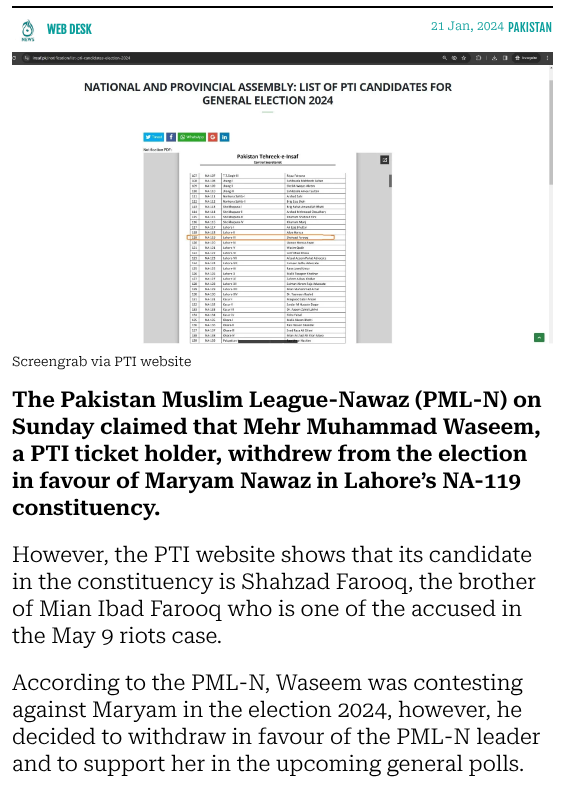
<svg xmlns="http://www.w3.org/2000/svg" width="565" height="810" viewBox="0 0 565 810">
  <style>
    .t1 { font: bold 12px Fjalla One; fill: #0b9e9b; }
    .t2 { font: 300 12px Roboto Serif; fill: #0b9e9b; }
    .t3 { font: 12px Fjalla One; letter-spacing: 0.25px; fill: #0b9e9b; }
    .t4 { font: 300 13px 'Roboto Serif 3'; fill: #000; }
    .t5 { font: 600 22px Roboto Serif; fill: #000; }
    .t6 { font: 300 22px 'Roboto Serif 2'; fill: #000; }
  </style>
  <rect width="100%" height="100%" fill="#fff"/>
  <rect x="12" y="6" width="541" height="2" fill="#000"/>
  <image x="15" y="19" width="20" height="23" href="images/1.png"/>
  <text x="47" y="34" class="t1">WEB DESK</text>
  <text x="431" y="30" class="t2">21 Jan, 2024</text>
  <text x="508" y="32" class="t3">PAKISTAN</text>
  <image x="12" y="52" width="541" height="292" href="images/2.png"/>
  <text x="12" y="366" class="t4">Screengrab via PTI website</text>
  <text x="12" y="407" class="t5">The Pakistan Muslim League-Nawaz (PML-N) on</text>
  <text x="12" y="434" class="t5">Sunday claimed that Mehr Muhammad Waseem,</text>
  <text x="12" y="461" class="t5">a PTI ticket holder, withdrew from the election</text>
  <text x="12" y="488" class="t5">in favour of Maryam Nawaz in Lahore’s NA-119</text>
  <text x="12" y="515" class="t5">constituency.</text>
  <text x="12" y="562" class="t6">However, the PTI website shows that its candidate</text>
  <text x="12" y="589" class="t6">in the constituency is Shahzad Farooq, the brother</text>
  <text x="12" y="616" class="t6">of Mian Ibad Farooq who is one of the accused in</text>
  <text x="12" y="643" class="t6">the May 9 riots case.</text>
  <text x="12" y="690" class="t6">According to the PML-N, Waseem was contesting</text>
  <text x="12" y="717" class="t6">against Maryam in the election 2024, however, he</text>
  <text x="12" y="744" class="t6">decided to withdraw in favour of the PML-N leader</text>
  <text x="12" y="771" class="t6">and to support her in the upcoming general polls.</text>
</svg>
